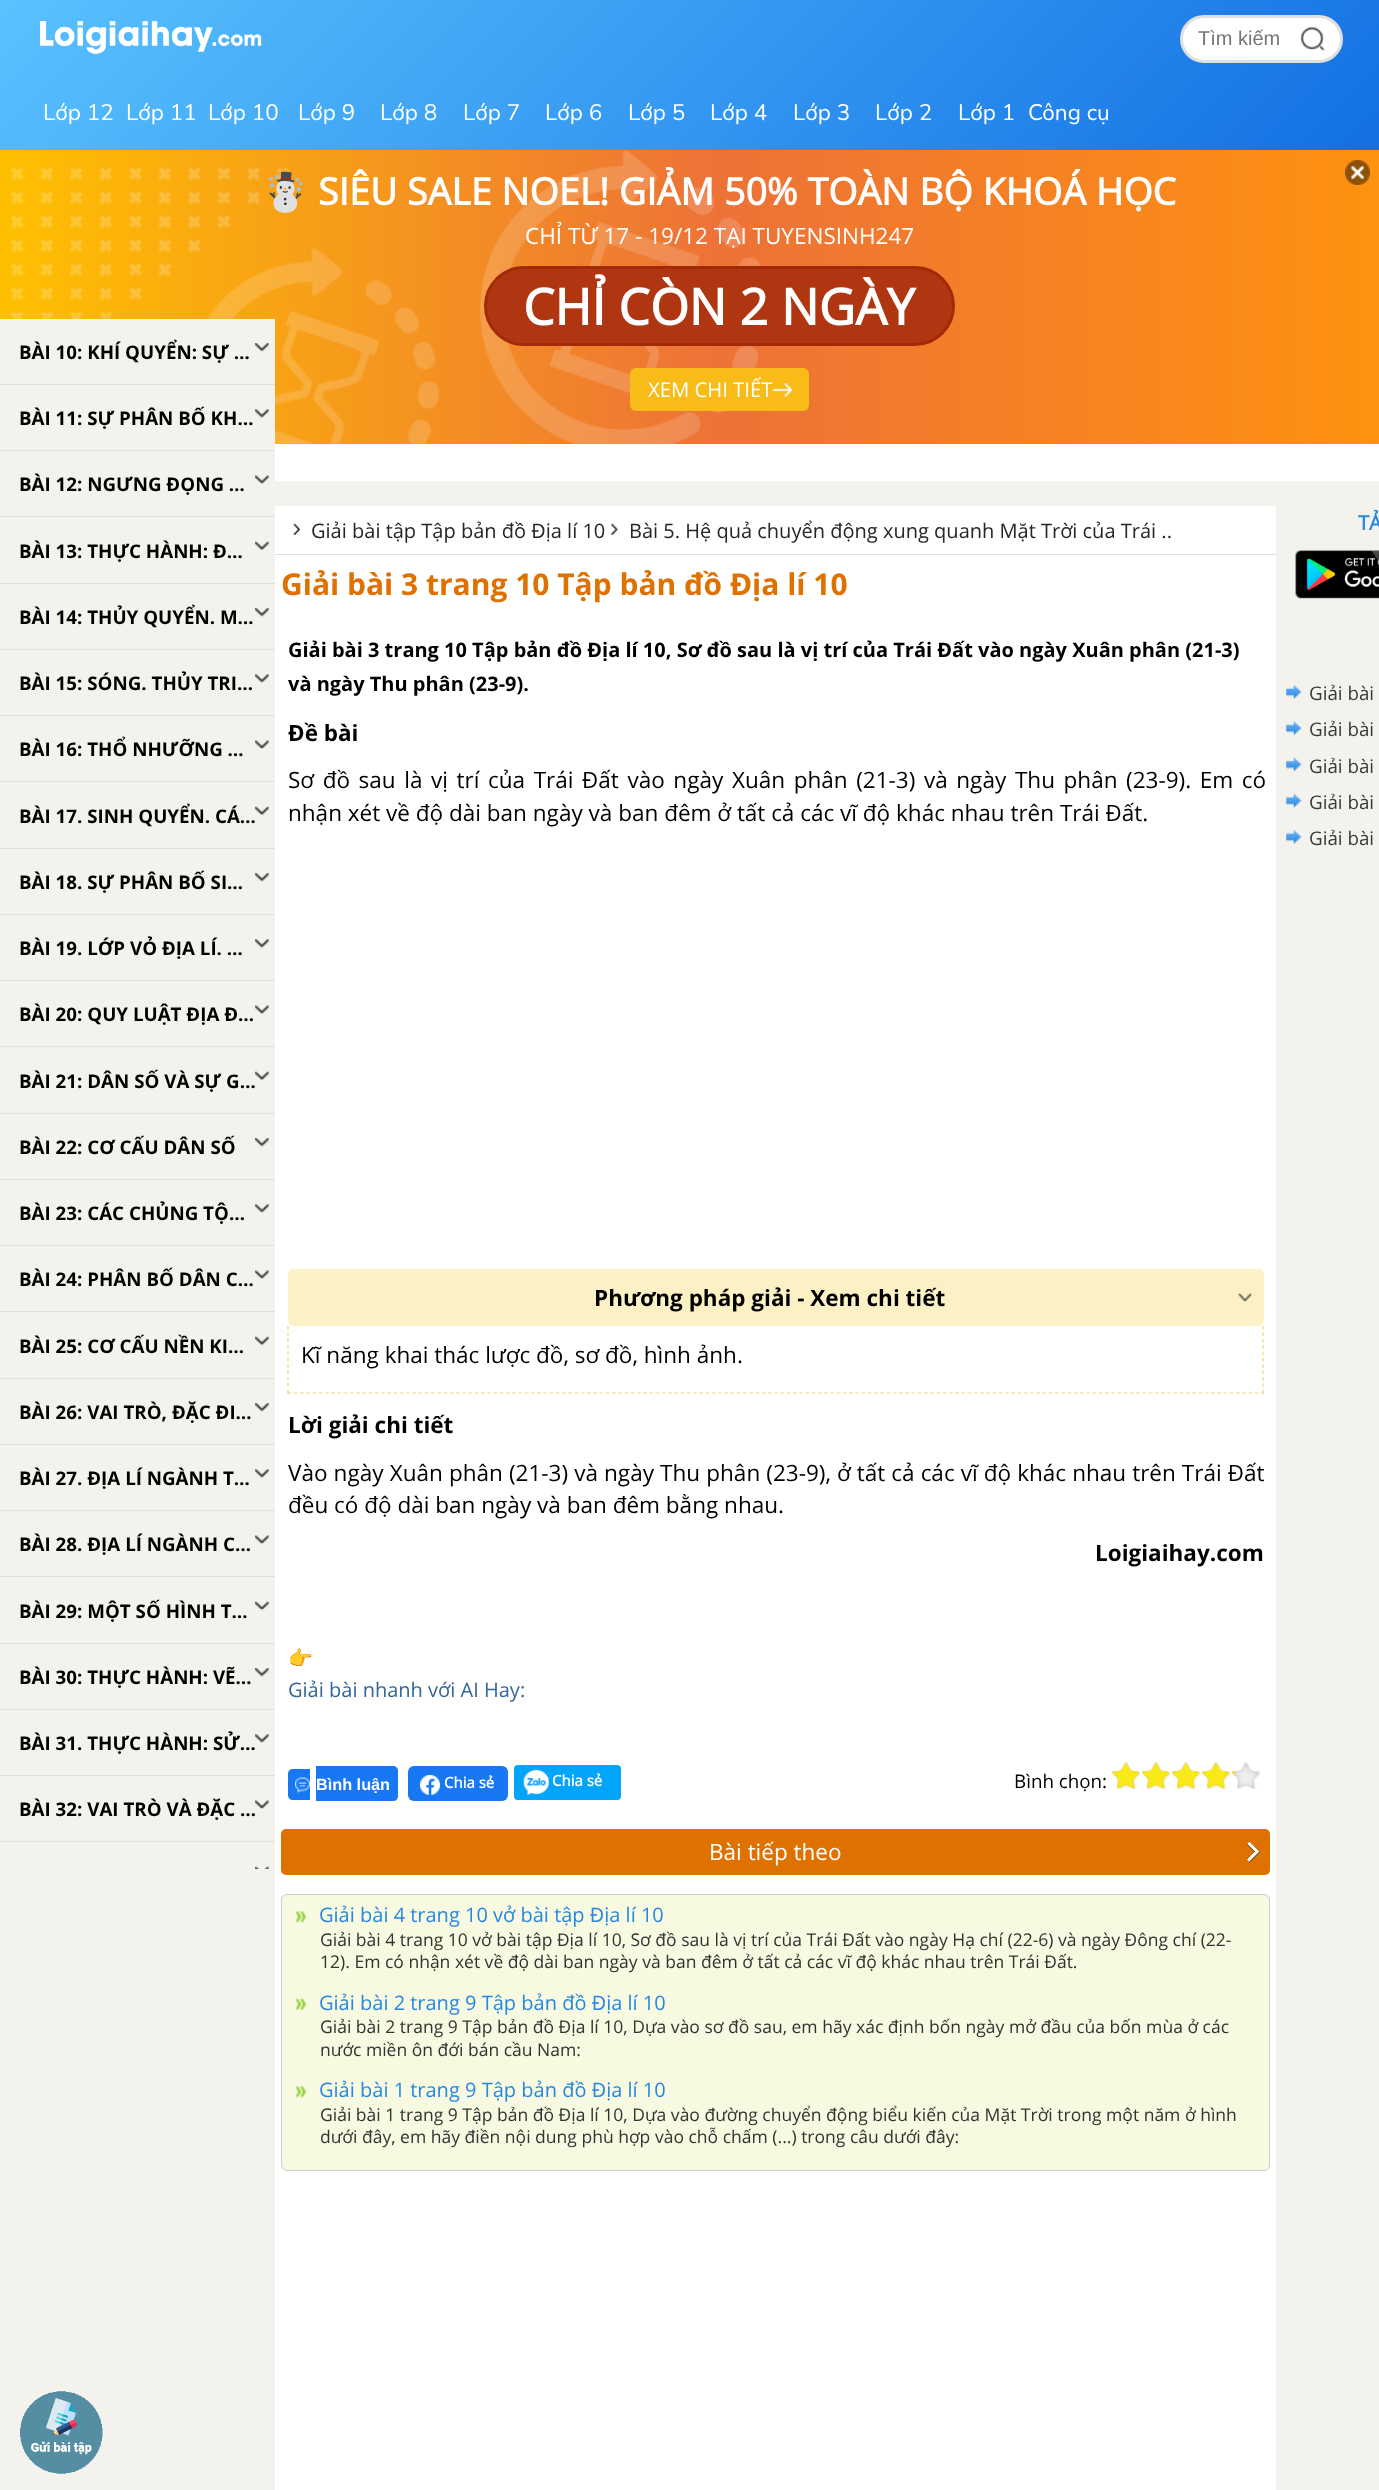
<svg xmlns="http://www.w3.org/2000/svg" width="1379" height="2490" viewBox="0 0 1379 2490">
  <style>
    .t1 { font: 20px Liberation Sans; fill: #757575; }
    .t2 { font: 22.5px Nunito; fill: #fff; }
    .t3 { font: bold 37.5px Noto Color Emoji; fill: #fff; }
    .t4 { font: bold 37.5px 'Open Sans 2'; fill: #fff; }
    .t5 { font: 22.5px Open Sans; fill: #fff; }
    .t6 { font: bold 50px 'Open Sans 2'; fill: #fff; }
    .t7 { font: 20.25px Open Sans; fill: #fff; }
    .t8 { font: bold 18.75px Open Sans; fill: #000; }
    .t9 { font: 20px Open Sans; fill: #262626; }
    .t10 { font: bold 30px Open Sans; fill: #df7100; }
    .t11 { font: bold 20px Open Sans; fill: #000; }
    .t12 { font: bold 22.5px Open Sans; fill: #000; }
    .t13 { font: 22.5px Open Sans; fill: #000; }
    .t14 { font: 20px Noto Color Emoji; fill: #369; }
    .t15 { font: 20px Open Sans; fill: #369; }
    .t16 { font: bold 16.25px Liberation Sans; fill: #fff; }
    .t17 { font: bold 15px 'Open Sans 2'; fill: #fff; }
    .t18 { font: 18.75px Open Sans; fill: #000; }
    .t19 { font: 20px Open Sans; fill: #2888e1; }
    .t20 { font: 17.5px Open Sans; fill: #333; }
    .t21 { font: bold 20px 'Open Sans 2'; fill: #2888e1; }
    .t22 { font: 18.75px Open Sans; fill: #3a3a3a; }
  </style>
  <defs>
    <linearGradient id="g1" gradientUnits="userSpaceOnUse" x1="1073" y1="458" x2="307" y2="-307"><stop offset="0" stop-color="#1270e3"/><stop offset="1" stop-color="#59c2ff"/></linearGradient>
    <linearGradient id="g2" gradientUnits="userSpaceOnUse" x1="0" y1="297" x2="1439" y2="297"><stop offset="0" stop-color="#ffc000"/><stop offset="0.5" stop-color="#ed7237"/><stop offset="1" stop-color="#ff950c"/></linearGradient>
  </defs>
  <rect width="100%" height="100%" fill="#fff"/>
  <rect x="0" y="0" width="1379" height="150" fill="url(#g1)"/>
  <image x="40" y="21" width="222" height="33" href="images/1.png"/>
  <rect x="1181.5" y="16.5" width="160" height="45" rx="22.5" fill="#fff" stroke="#e0e0e0" stroke-width="3"/>
  <text x="1198" y="45" class="t1">Tìm kiếm</text>
  <image x="1300" y="26" width="25" height="25" href="images/2.png"/>
  <text x="43" y="120" class="t2">Lớp 12</text>
  <text x="126" y="120" class="t2">Lớp 11</text>
  <text x="208" y="120" class="t2">Lớp 10</text>
  <text x="298" y="120" class="t2">Lớp 9</text>
  <text x="380" y="120" class="t2">Lớp 8</text>
  <text x="463" y="120" class="t2">Lớp 7</text>
  <text x="545" y="120" class="t2">Lớp 6</text>
  <text x="628" y="120" class="t2">Lớp 5</text>
  <text x="710" y="120" class="t2">Lớp 4</text>
  <text x="793" y="120" class="t2">Lớp 3</text>
  <text x="875" y="120" class="t2">Lớp 2</text>
  <text x="958" y="120" class="t2">Lớp 1</text>
  <text x="1028" y="120" class="t2">Công cụ</text>
  <rect x="0" y="150" width="1379" height="294" fill="url(#g2)"/>
  <image x="11" y="150" width="750" height="294" href="images/3.png"/>
  <text x="262" y="205" class="t3">☃️</text>
  <text x="318" y="205" class="t4">SIÊU SALE NOEL! GIẢM 50% TOÀN BỘ KHOÁ HỌC</text>
  <text x="525" y="244" class="t5">CHỈ TỪ 17 - 19/12 TẠI TUYENSINH247</text>
  <rect x="485.5" y="267.5" width="468" height="77" rx="38.5" fill="#b03611" stroke="#a22a06" stroke-width="3"/>
  <text x="523" y="325" class="t6">CHỈ CÒN 2 NGÀY</text>
  <rect x="630" y="368" width="179" height="43" rx="6" fill="#f8bb18"/>
  <text x="648" y="397" class="t7">XEM CHI TIẾT</text>
  <image x="772" y="383" width="20" height="14" href="images/4.png"/>
  <image x="1345" y="160" width="25" height="25" href="images/5.png"/>
  <rect x="0" y="481" width="1379" height="2009" fill="#f4f2ec"/>
  <rect x="0" y="319" width="275" height="162" fill="#f4f2ec"/>
  <rect x="0" y="384" width="275" height="1" fill="#e0e0e0"/>
  <text x="19" y="359" class="t8">BÀI 10: KHÍ QUYỂN: SỰ …</text>
  <image x="255" y="343" width="14" height="9" href="images/6.png"/>
  <rect x="0" y="450" width="275" height="1" fill="#e0e0e0"/>
  <text x="19" y="425" class="t8">BÀI 11: SỰ PHÂN BỐ KH…</text>
  <image x="255" y="409" width="14" height="9" href="images/7.png"/>
  <rect x="0" y="516" width="275" height="1" fill="#e0e0e0"/>
  <text x="19" y="491" class="t8">BÀI 12: NGƯNG ĐỌNG …</text>
  <image x="255" y="475" width="14" height="9" href="images/8.png"/>
  <rect x="0" y="583" width="275" height="1" fill="#e0e0e0"/>
  <text x="19" y="558" class="t8">BÀI 13: THỰC HÀNH: Đ…</text>
  <image x="255" y="541" width="14" height="10" href="images/9.png"/>
  <rect x="0" y="649" width="275" height="1" fill="#e0e0e0"/>
  <text x="19" y="624" class="t8">BÀI 14: THỦY QUYỂN. M…</text>
  <image x="255" y="608" width="14" height="9" href="images/6.png"/>
  <rect x="0" y="715" width="275" height="1" fill="#e0e0e0"/>
  <text x="19" y="690" class="t8">BÀI 15: SÓNG. THỦY TRI…</text>
  <image x="255" y="674" width="14" height="9" href="images/7.png"/>
  <rect x="0" y="781" width="275" height="1" fill="#e0e0e0"/>
  <text x="19" y="756" class="t8">BÀI 16: THỔ NHƯỠNG …</text>
  <image x="255" y="740" width="14" height="9" href="images/8.png"/>
  <rect x="0" y="848" width="275" height="1" fill="#e0e0e0"/>
  <text x="19" y="823" class="t8">BÀI 17. SINH QUYỂN. CÁ…</text>
  <image x="255" y="806" width="14" height="10" href="images/9.png"/>
  <rect x="0" y="914" width="275" height="1" fill="#e0e0e0"/>
  <text x="19" y="889" class="t8">BÀI 18. SỰ PHÂN BỐ SI…</text>
  <image x="255" y="873" width="14" height="9" href="images/6.png"/>
  <rect x="0" y="980" width="275" height="1" fill="#e0e0e0"/>
  <text x="19" y="955" class="t8">BÀI 19. LỚP VỎ ĐỊA LÍ. …</text>
  <image x="255" y="939" width="14" height="9" href="images/7.png"/>
  <rect x="0" y="1046" width="275" height="1" fill="#e0e0e0"/>
  <text x="19" y="1021" class="t8">BÀI 20: QUY LUẬT ĐỊA Đ…</text>
  <image x="255" y="1005" width="14" height="9" href="images/8.png"/>
  <rect x="0" y="1113" width="275" height="1" fill="#e0e0e0"/>
  <text x="19" y="1088" class="t8">BÀI 21: DÂN SỐ VÀ SỰ G…</text>
  <image x="255" y="1071" width="14" height="10" href="images/9.png"/>
  <rect x="0" y="1179" width="275" height="1" fill="#e0e0e0"/>
  <text x="19" y="1154" class="t8">BÀI 22: CƠ CẤU DÂN SỐ</text>
  <image x="255" y="1138" width="14" height="9" href="images/6.png"/>
  <rect x="0" y="1245" width="275" height="1" fill="#e0e0e0"/>
  <text x="19" y="1220" class="t8">BÀI 23: CÁC CHỦNG TỘ…</text>
  <image x="255" y="1204" width="14" height="9" href="images/7.png"/>
  <rect x="0" y="1311" width="275" height="1" fill="#e0e0e0"/>
  <text x="19" y="1286" class="t8">BÀI 24: PHÂN BỐ DÂN C…</text>
  <image x="255" y="1270" width="14" height="9" href="images/8.png"/>
  <rect x="0" y="1378" width="275" height="1" fill="#e0e0e0"/>
  <text x="19" y="1353" class="t8">BÀI 25: CƠ CẤU NỀN KI…</text>
  <image x="255" y="1336" width="14" height="10" href="images/9.png"/>
  <rect x="0" y="1444" width="275" height="1" fill="#e0e0e0"/>
  <text x="19" y="1419" class="t8">BÀI 26: VAI TRÒ, ĐẶC ĐI…</text>
  <image x="255" y="1403" width="14" height="9" href="images/6.png"/>
  <rect x="0" y="1510" width="275" height="1" fill="#e0e0e0"/>
  <text x="19" y="1485" class="t8">BÀI 27. ĐỊA LÍ NGÀNH T…</text>
  <image x="255" y="1469" width="14" height="9" href="images/7.png"/>
  <rect x="0" y="1576" width="275" height="1" fill="#e0e0e0"/>
  <text x="19" y="1551" class="t8">BÀI 28. ĐỊA LÍ NGÀNH C…</text>
  <image x="255" y="1535" width="14" height="9" href="images/8.png"/>
  <rect x="0" y="1643" width="275" height="1" fill="#e0e0e0"/>
  <text x="19" y="1618" class="t8">BÀI 29: MỘT SỐ HÌNH T…</text>
  <image x="255" y="1601" width="14" height="10" href="images/10.png"/>
  <rect x="0" y="1709" width="275" height="1" fill="#e0e0e0"/>
  <text x="19" y="1684" class="t8">BÀI 30: THỰC HÀNH: VẼ…</text>
  <image x="255" y="1668" width="14" height="9" href="images/6.png"/>
  <rect x="0" y="1775" width="275" height="1" fill="#e0e0e0"/>
  <text x="19" y="1750" class="t8">BÀI 31. THỰC HÀNH: SỬ…</text>
  <image x="255" y="1734" width="14" height="9" href="images/7.png"/>
  <rect x="0" y="1841" width="275" height="1" fill="#e0e0e0"/>
  <text x="19" y="1816" class="t8">BÀI 32: VAI TRÒ VÀ ĐẶC …</text>
  <image x="255" y="1800" width="14" height="9" href="images/8.png"/>
  <image x="255" y="1866" width="14" height="3" href="images/11.png"/>
  <rect x="275" y="506" width="1001" height="1984" fill="#fff"/>
  <rect x="275" y="554" width="1001" height="1" fill="#e0e0e0"/>
  <image x="293" y="523" width="7" height="12" href="images/12.png"/>
  <text x="311" y="538" class="t9">Giải bài tập Tập bản đồ Địa lí 10</text>
  <image x="611" y="523" width="7" height="12" href="images/13.png"/>
  <text x="629" y="538" class="t9">Bài 5. Hệ quả chuyển động xung quanh Mặt Trời của Trái ..</text>
  <text x="281" y="595" class="t10">Giải bài 3 trang 10 Tập bản đồ Địa lí 10</text>
  <text x="288" y="657" class="t11">Giải bài 3 trang 10 Tập bản đồ Địa lí 10, Sơ đồ sau là vị trí của Trái Đất vào ngày Xuân phân (21-3)</text>
  <text x="288" y="691" class="t11">và ngày Thu phân (23-9).</text>
  <text x="288" y="741" class="t12">Đề bài</text>
  <text x="288" y="788" word-spacing="2.75" class="t13">Sơ đồ sau là vị trí của Trái Đất vào ngày Xuân phân (21-3) và ngày Thu phân (23-9). Em có</text>
  <text x="288" y="821" class="t13">nhận xét về độ dài ban ngày và ban đêm ở tất cả các vĩ độ khác nhau trên Trái Đất.</text>
  <rect x="288" y="1269" width="976" height="57" rx="6" fill="#fcf1c4"/>
  <text x="594" y="1306" class="t12">Phương pháp giải - Xem chi tiết</text>
  <image x="1238" y="1293" width="14" height="9" href="images/14.png"/>
  <path d="M1263 1326V1394" fill="none" stroke="#ead67e" stroke-width="1.2" stroke-dasharray="3.75 2.62"/>
  <path d="M287.5 1393H1264" fill="none" stroke="#ead67e" stroke-width="1.2" stroke-dasharray="3.75 2.49"/>
  <path d="M288 1326V1394" fill="none" stroke="#ead67e" stroke-width="1.2" stroke-dasharray="3.75 2.62"/>
  <text x="301" y="1363" class="t13">Kĩ năng khai thác lược đồ, sơ đồ, hình ảnh.</text>
  <text x="288" y="1433" class="t12">Lời giải chi tiết</text>
  <text x="288" y="1481" word-spacing="0.25" class="t13">Vào ngày Xuân phân (21-3) và ngày Thu phân (23-9), ở tất cả các vĩ độ khác nhau trên Trái Đất</text>
  <text x="288" y="1513" class="t13">đều có độ dài ban ngày và ban đêm bằng nhau.</text>
  <text x="1095" y="1561" class="t12">Loigiaihay.com</text>
  <text x="288" y="1665" class="t14">👉</text>
  <text x="288" y="1697" class="t15">Giải bài nhanh với AI Hay:</text>
  <path d="M293 1769H310V1800H293C290 1800 288 1798 288 1795V1774C288 1771 290 1769 293 1769Z" fill="#1877f2"/>
  <image x="295" y="1777" width="15" height="16" href="images/15.png"/>
  <path d="M316 1766H393C396 1766 398 1768 398 1771V1796C398 1799 396 1801 393 1801H316Z" fill="#1877f2"/>
  <text x="316" y="1790" class="t16">Bình luận</text>
  <rect x="408" y="1766" width="100" height="35" rx="6" fill="#1877f2"/>
  <image x="420" y="1775" width="20" height="20" href="images/16.png"/>
  <text x="444" y="1788" class="t17">Chia sẻ</text>
  <rect x="514" y="1765" width="107" height="35" rx="4" fill="#03a5fa"/>
  <image x="523" y="1770" width="26" height="25" href="images/17.png"/>
  <text x="552" y="1786" class="t17">Chia sẻ</text>
  <text x="1014" y="1788" class="t18">Bình chọn:</text>
  <image x="1112" y="1762" width="148" height="28" href="images/18.png"/>
  <image x="1112" y="1762" width="123" height="27" href="images/19.png"/>
  <rect x="281" y="1829" width="989" height="46" rx="5" fill="#df7100"/>
  <text x="709" y="1860" class="t5">Bài tiếp theo</text>
  <image x="1246" y="1841" width="14" height="22" href="images/20.png"/>
  <rect x="281.5" y="1894.5" width="988" height="276" rx="5.5" fill="#f7f9e0" stroke="#ccc"/>
  <image x="295" y="1911" width="12" height="12" href="images/21.png"/>
  <text x="319" y="1922" class="t19">Giải bài 4 trang 10 vở bài tập Địa lí 10</text>
  <text x="320" y="1946" class="t20">Giải bài 4 trang 10 vở bài tập Địa lí 10, Sơ đồ sau là vị trí của Trái Đất vào ngày Hạ chí (22-6) và ngày Đông chí (22-</text>
  <text x="320" y="1968" class="t20">12). Em có nhận xét về độ dài ban ngày và ban đêm ở tất cả các vĩ độ khác nhau trên Trái Đất.</text>
  <image x="295" y="1998" width="12" height="12" href="images/22.png"/>
  <text x="319" y="2010" class="t19">Giải bài 2 trang 9 Tập bản đồ Địa lí 10</text>
  <text x="320" y="2033" class="t20">Giải bài 2 trang 9 Tập bản đồ Địa lí 10, Dựa vào sơ đồ sau, em hãy xác định bốn ngày mở đầu của bốn mùa ở các</text>
  <text x="320" y="2056" class="t20">nước miền ôn đới bán cầu Nam:</text>
  <image x="295" y="2086" width="12" height="12" href="images/21.png"/>
  <text x="319" y="2097" class="t19">Giải bài 1 trang 9 Tập bản đồ Địa lí 10</text>
  <text x="320" y="2121" class="t20">Giải bài 1 trang 9 Tập bản đồ Địa lí 10, Dựa vào đường chuyển động biểu kiến của Mặt Trời trong một năm ở hình</text>
  <text x="320" y="2143" class="t20">dưới đây, em hãy điền nội dung phù hợp vào chỗ chấm (...) trong câu dưới đây:</text>
  <text x="1358" y="530" class="t21">TẢ</text>
  <image x="1295" y="550" width="84" height="49" href="images/23.png"/>
  <image x="1286" y="684" width="16" height="15" href="images/24.png"/>
  <text x="1309" y="700" class="t22">Giải bài</text>
  <image x="1286" y="721" width="16" height="15" href="images/25.png"/>
  <text x="1309" y="736" class="t22">Giải bài</text>
  <image x="1286" y="757" width="16" height="15" href="images/26.png"/>
  <text x="1309" y="773" class="t22">Giải bài</text>
  <image x="1286" y="793" width="16" height="15" href="images/27.png"/>
  <text x="1309" y="809" class="t22">Giải bài</text>
  <image x="1286" y="829" width="16" height="15" href="images/24.png"/>
  <text x="1309" y="845" class="t22">Giải bài</text>
  <image x="20" y="2391" width="83" height="83" href="images/28.png"/>
</svg>
